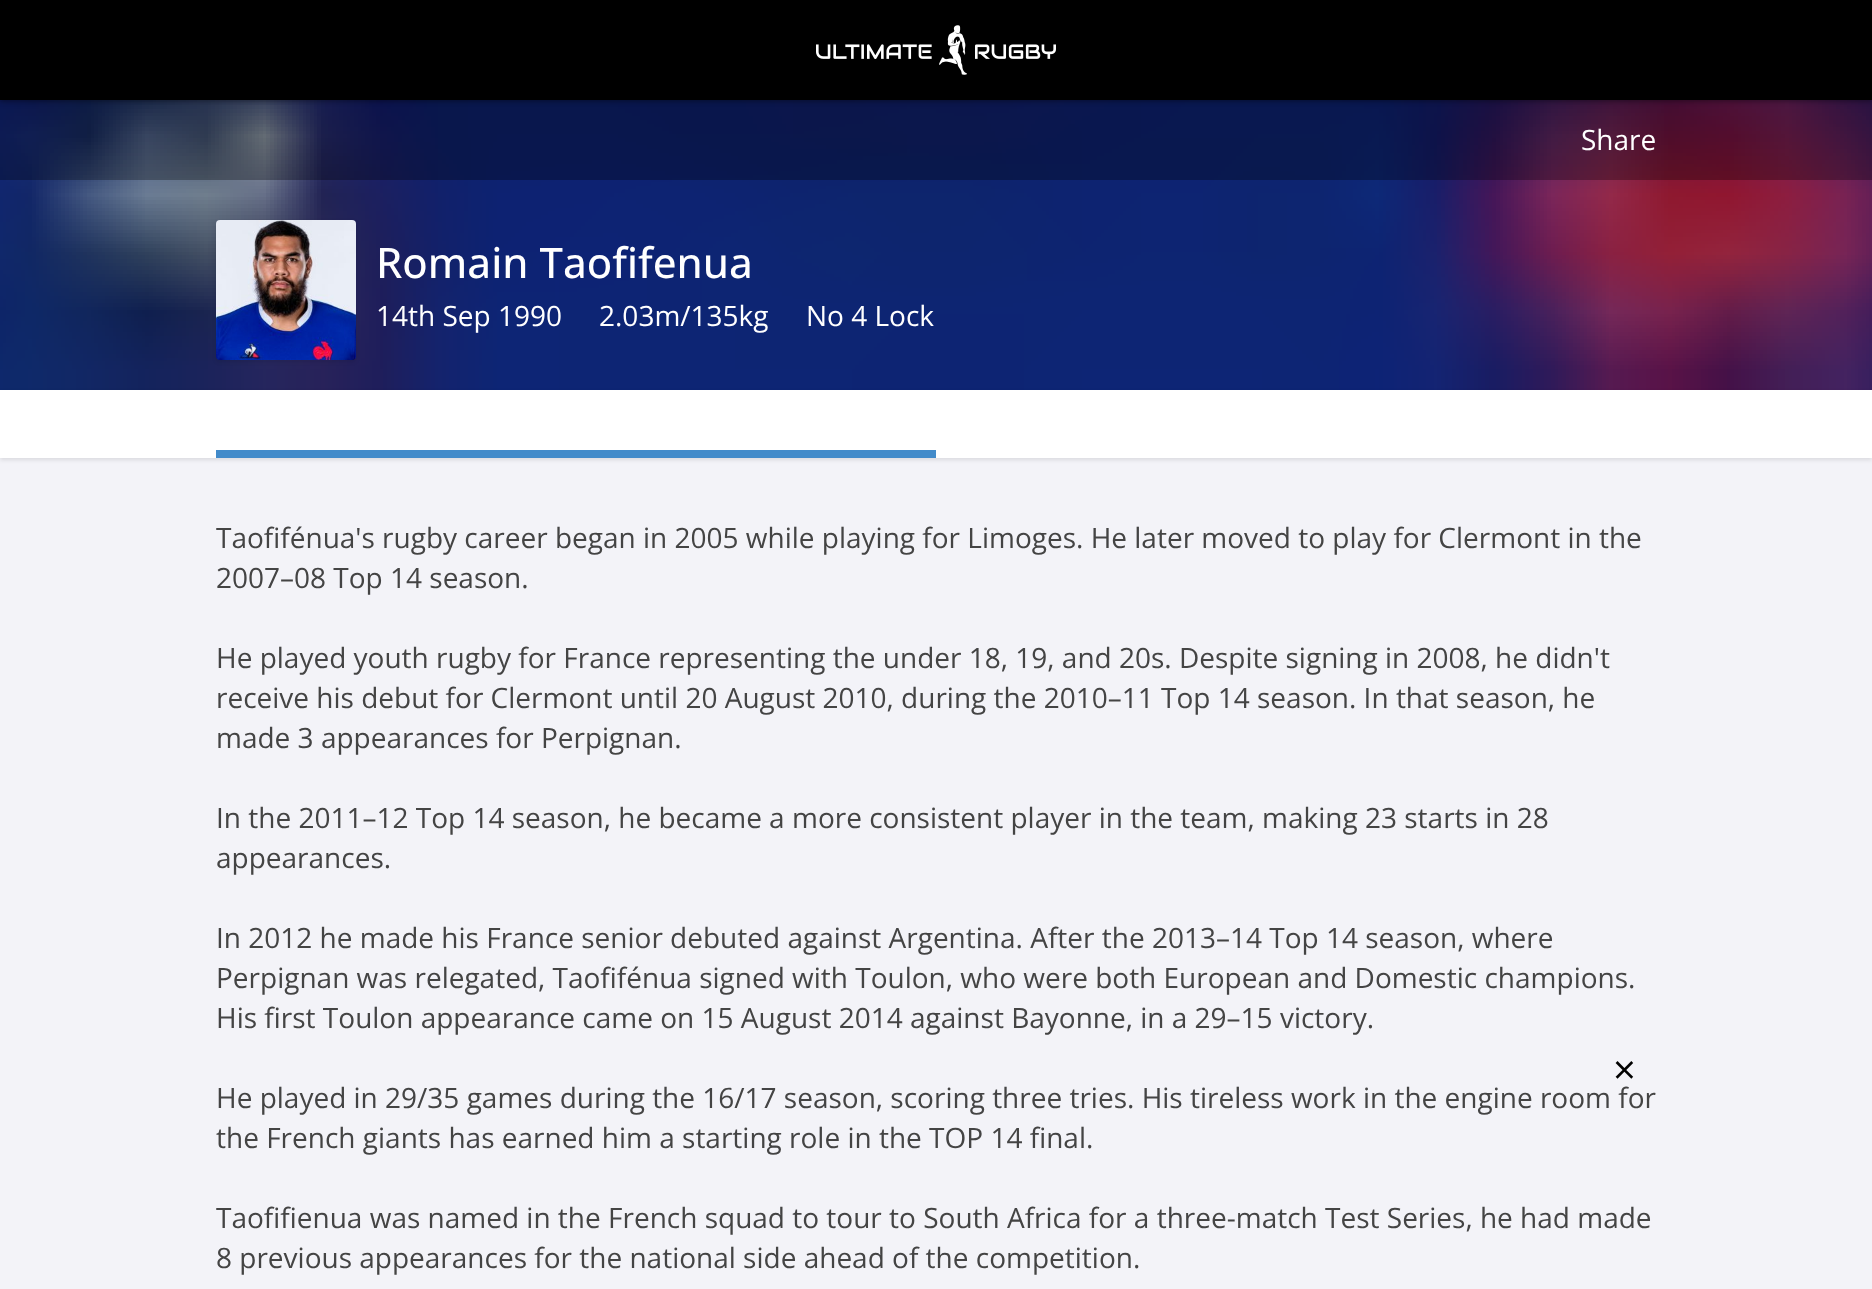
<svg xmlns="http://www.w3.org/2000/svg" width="1872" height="1289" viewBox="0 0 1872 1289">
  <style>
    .t1 { font: 28px Open Sans; fill: #fff; }
    .t2 { font: 500 42px Open Sans; fill: #fff; }
    .t3 { font: 28px Open Sans; fill: #444; }
    .t4 { font: 40px Open Sans; fill: #000; }
  </style>
  <rect width="100%" height="100%" fill="#f3f3f8"/>
  <rect x="0" y="100" width="1872" height="290" fill="#222"/>
  <image x="0" y="100" width="1872" height="290" href="images/2.png"/>
  <rect x="0" y="100" width="1872" height="80" fill="#0000004d"/>
  <rect x="0" y="2" width="1872" height="100" fill="#0000004d" filter="blur(2px)"/>
  <rect x="0" y="0" width="1872" height="100" fill="#000"/>
  <image x="816" y="25" width="240" height="50" href="images/1.png"/>
  <text x="1581" y="150" class="t1">Share</text>
  <rect x="216" y="222" width="140" height="140" rx="4" fill="#0000001a" filter="blur(2px)"/>
  <image x="216" y="220" width="140" height="140" href="images/3.png"/>
  <text x="376" y="278" class="t2">Romain Taofifenua</text>
  <text x="376" y="326" class="t1">14th Sep 1990</text>
  <text x="599" y="326" class="t1">2.03m/135kg</text>
  <text x="806" y="326" class="t1">No 4 Lock</text>
  <rect x="0" y="392" width="1872" height="68" fill="#0000001a" filter="blur(2px)"/>
  <rect x="0" y="390" width="1872" height="68" fill="#fff"/>
  <rect x="216" y="450" width="720" height="8" fill="#428bca"/>
  <text x="216" y="548" class="t3">Taofifénua's rugby career began in 2005 while playing for Limoges. He later moved to play for Clermont in the</text>
  <text x="216" y="588" class="t3">2007–08 Top 14 season.</text>
  <text x="216" y="668" class="t3">He played youth rugby for France representing the under 18, 19, and 20s. Despite signing in 2008, he didn't</text>
  <text x="216" y="708" class="t3">receive his debut for Clermont until 20 August 2010, during the 2010–11 Top 14 season. In that season, he</text>
  <text x="216" y="748" class="t3">made 3 appearances for Perpignan.</text>
  <text x="216" y="828" class="t3">In the 2011–12 Top 14 season, he became a more consistent player in the team, making 23 starts in 28</text>
  <text x="216" y="868" class="t3">appearances.</text>
  <text x="216" y="948" class="t3">In 2012 he made his France senior debuted against Argentina. After the 2013–14 Top 14 season, where</text>
  <text x="216" y="988" class="t3">Perpignan was relegated, Taofifénua signed with Toulon, who were both European and Domestic champions.</text>
  <text x="216" y="1028" class="t3">His first Toulon appearance came on 15 August 2014 against Bayonne, in a 29–15 victory.</text>
  <text x="216" y="1108" class="t3">He played in 29/35 games during the 16/17 season, scoring three tries. His tireless work in the engine room for</text>
  <text x="216" y="1148" class="t3">the French giants has earned him a starting role in the TOP 14 final.</text>
  <text x="216" y="1228" class="t3">Taofifienua was named in the French squad to tour to South Africa for a three-match Test Series, he had made</text>
  <text x="216" y="1268" class="t3">8 previous appearances for the national side ahead of the competition.</text>
  <text x="1613" y="1084" class="t4">×</text>
</svg>
